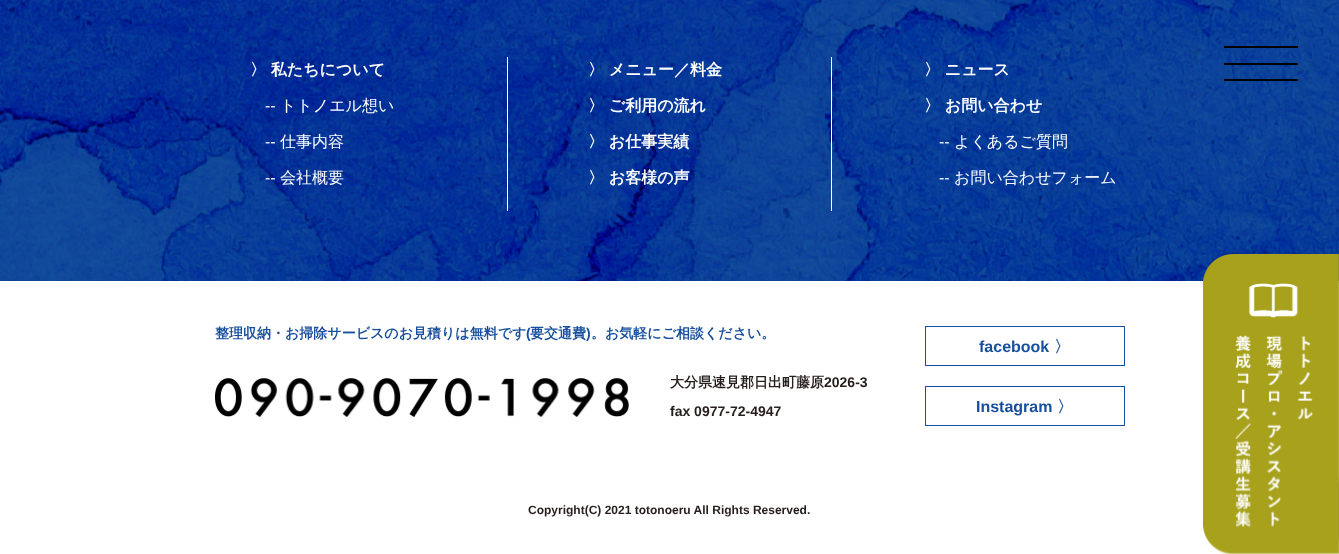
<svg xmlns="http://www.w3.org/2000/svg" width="1339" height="554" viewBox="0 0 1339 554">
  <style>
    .t1 { font: bold 16px WenQuanYi Zen Hei; fill: #fff; }
    .t2 { font: 16px Liberation Sans; fill: #fff; }
    .t3 { font: 500 16px WenQuanYi Zen Hei; fill: #fff; }
    .t4 { font: bold 14px WenQuanYi Zen Hei; fill: #174e9d; }
    .t5 { font: bold 14px Liberation Sans; fill: #174e9d; }
    .t6 { font: bold 14px WenQuanYi Zen Hei; fill: #251e1c; }
    .t7 { font: bold 14px Liberation Sans; fill: #251e1c; }
    .t8 { font: bold 16px Liberation Sans; fill: #174e9d; }
    .t9 { font: bold 16px WenQuanYi Zen Hei; fill: #174e9d; }
    .t10 { font: bold 12px Liberation Sans; fill: #251e1c; }
  </style>
  <rect width="100%" height="100%" fill="#fff"/>
  <image x="0" y="0" width="1339" height="281" href="images/1.png"/>
  <text x="250" y="75" class="t1">〉 私たちについて</text>
  <text x="265" y="111" class="t2">--</text>
  <text x="280" y="111" class="t3">トトノエル想い</text>
  <text x="265" y="147" class="t2">--</text>
  <text x="280" y="147" class="t3">仕事内容</text>
  <text x="265" y="183" class="t2">--</text>
  <text x="280" y="183" class="t3">会社概要</text>
  <rect x="831" y="57" width="1" height="154" fill="#fff"/>
  <rect x="507" y="57" width="1" height="154" fill="#fff"/>
  <text x="588" y="75" class="t1">〉 メニュー／料金</text>
  <text x="588" y="111" class="t1">〉 ご利用の流れ</text>
  <text x="588" y="147" class="t1">〉 お仕事実績</text>
  <text x="588" y="183" class="t1">〉 お客様の声</text>
  <text x="924" y="75" class="t1">〉 ニュース</text>
  <text x="924" y="111" class="t1">〉 お問い合わせ</text>
  <text x="939" y="147" class="t2">--</text>
  <text x="954" y="147" class="t3">よくあるご質問</text>
  <text x="939" y="183" class="t2">--</text>
  <text x="954" y="183" class="t3">お問い合わせフォーム</text>
  <text x="215" y="338" class="t4">整理収納・お掃除サービスのお見積りは無料です</text>
  <text x="526" y="338" class="t5">(</text>
  <text x="530" y="338" class="t4">要交通費</text>
  <text x="586" y="338" class="t5">)</text>
  <text x="591" y="338" class="t4">。お気軽にご相談ください。</text>
  <image x="215" y="378" width="414" height="39" href="images/2.png"/>
  <text x="670" y="387" class="t6">大分県速見郡日出町藤原</text>
  <text x="824" y="387" class="t7">2026-3</text>
  <text x="670" y="416" class="t7">fax 0977-72-4947</text>
  <rect x="925.5" y="326.5" width="199" height="39" fill="none" stroke="#174e9d"/>
  <text x="979" y="352" class="t8">facebook</text>
  <text x="1054" y="352" class="t9">〉</text>
  <rect x="925.5" y="386.5" width="199" height="39" fill="none" stroke="#174e9d"/>
  <text x="976" y="412" class="t8">Instagram</text>
  <text x="1057" y="412" class="t9">〉</text>
  <text x="528" y="514" class="t10">Copyright(C) 2021 totonoeru All Rights Reserved.</text>
  <rect x="1224" y="46" width="74" height="2" fill="#000"/>
  <rect x="1224" y="63" width="74" height="2" fill="#000"/>
  <rect x="1224" y="79" width="74" height="2" fill="#000"/>
  <rect x="1269" y="480" width="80" height="60" rx="2" fill="#808080" filter="blur(2.5px)"/>
  <image x="1203" y="254" width="136" height="300" href="images/3.png"/>
</svg>
